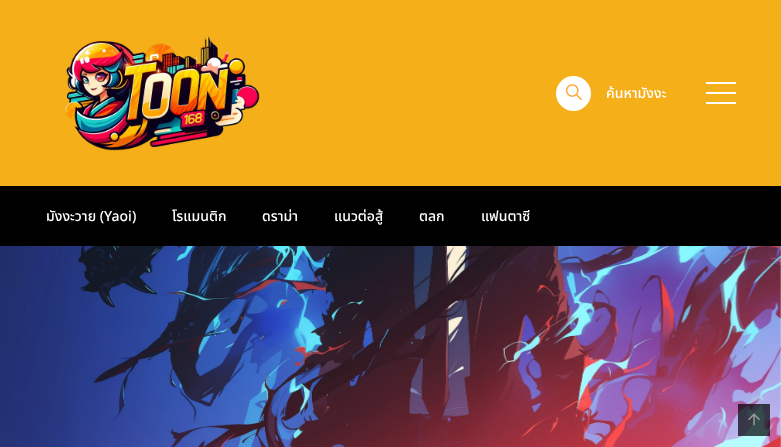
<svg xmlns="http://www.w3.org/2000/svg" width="781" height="447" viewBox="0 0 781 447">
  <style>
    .t1 { font: 500 14px Noto Sans Thai; fill: #fff; }
  </style>
  <defs>
    <linearGradient id="g1" gradientUnits="userSpaceOnUse" x1="0" y1="372" x2="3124" y2="372"><stop offset="0.4" stop-color="#f5af19"/><stop offset="1" stop-color="#f12711"/></linearGradient>
  </defs>
  <rect width="100%" height="100%" fill="#fff"/>
  <image x="0" y="246" width="781" height="201" href="images/1.png"/>
  <rect x="0" y="0" width="781" height="186" fill="url(#g1)"/>
  <image x="64" y="36" width="196" height="115" href="images/2.png"/>
  <circle cx="573.5" cy="93.5" r="17.5" fill="#fff"/>
  <image x="566" y="84" width="16" height="16" href="images/3.png"/>
  <text x="606" y="98" class="t1">ค้นหามังงะ</text>
  <rect x="706" y="82" width="30" height="2" fill="#fff"/>
  <rect x="706" y="92" width="30" height="2" fill="#fff"/>
  <rect x="706" y="102" width="30" height="2" fill="#fff"/>
  <rect x="0" y="186" width="781" height="60" fill="#000"/>
  <text x="46" y="221" class="t1">มังงะวาย (Yaoi)</text>
  <text x="172" y="221" class="t1">โรแมนติก</text>
  <text x="262" y="221" class="t1">ดราม่า</text>
  <text x="334" y="221" class="t1">แนวต่อสู้</text>
  <text x="419" y="221" class="t1">ตลก</text>
  <text x="481" y="221" class="t1">แฟนตาซี</text>
  <rect x="738" y="404" width="32" height="32" fill="#000000b3"/>
  <image x="748" y="413" width="12" height="13" href="images/4.png"/>
</svg>
